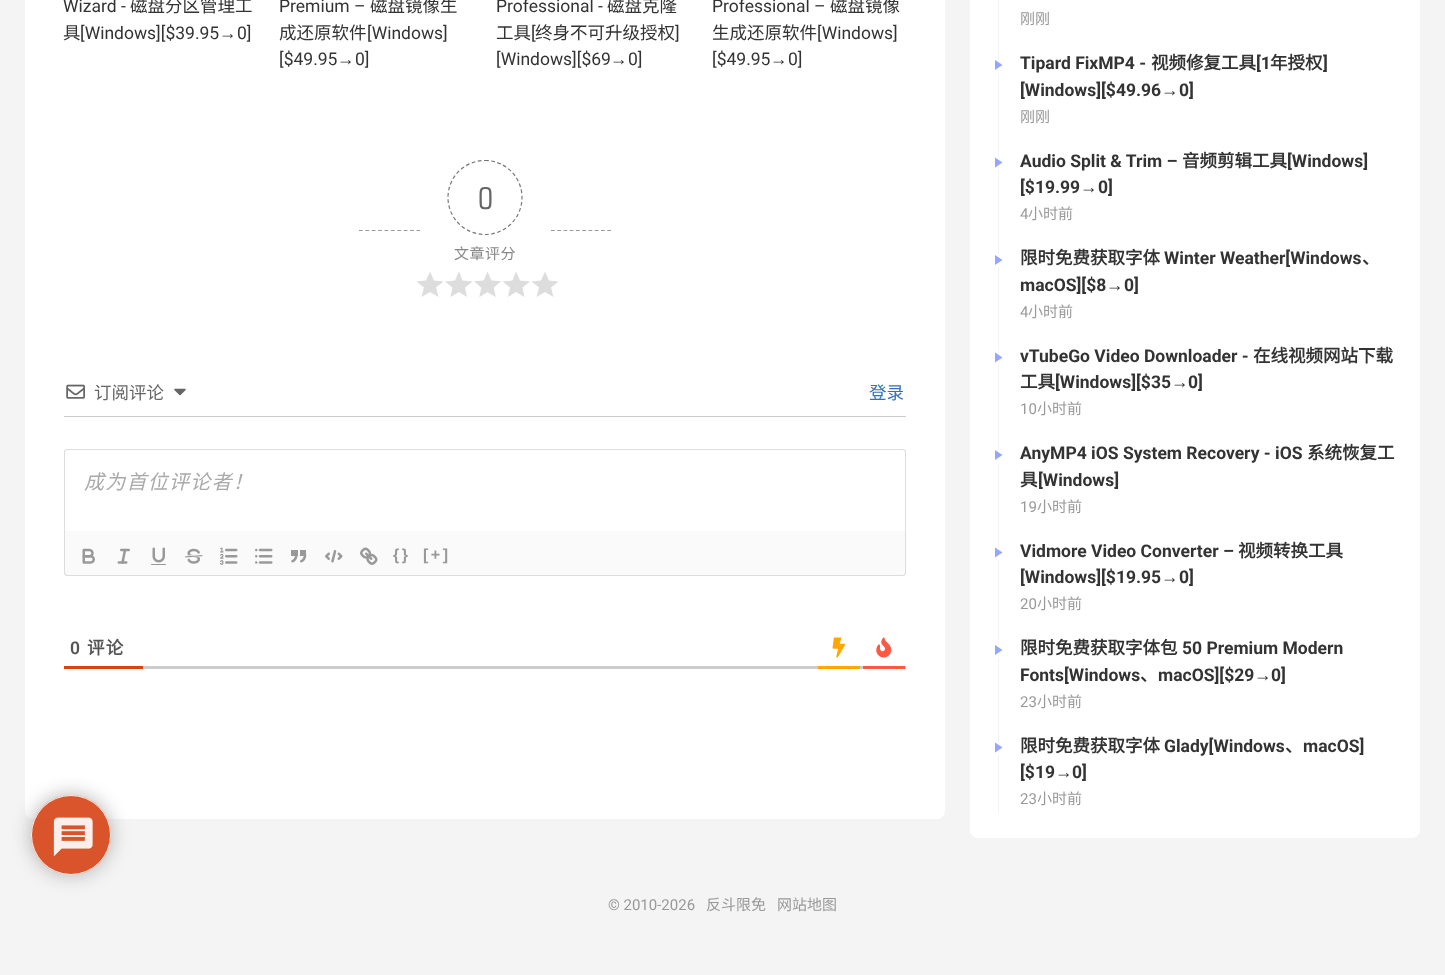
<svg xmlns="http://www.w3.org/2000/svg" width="1445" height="975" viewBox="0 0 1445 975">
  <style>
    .t1 { font: 17.5px Roboto; fill: #333; }
    .t2 { font: 17.5px Noto Sans CJK SC; fill: #333; }
    .t3 { font: 17.5px Liberation Sans; fill: #333; }
    .t4 { font: 30px 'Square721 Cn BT'; fill: #666; }
    .t5 { font: 15px Noto Sans CJK SC; letter-spacing: 0.5px; fill: #888; }
    .t6 { font: 17.5px Noto Sans CJK SC; fill: #666; }
    .t7 { font: 17.5px Noto Sans CJK SC; fill: #3272bf; }
    .t8 { font: italic 20px Noto Sans CJK SC; letter-spacing: 1.25px; fill: #aaa; }
    .t9 { font: bold 16px Liberation Sans; letter-spacing: 2.5px; fill: #999; }
    .t10 { font: 600 17.5px Roboto; letter-spacing: 1.25px; fill: #555; }
    .t11 { font: bold 17.5px Noto Sans CJK SC; letter-spacing: 1.25px; fill: #555; }
    .t12 { font: 15px Noto Sans CJK SC; fill: #999; }
    .t13 { font: bold 17.5px Roboto; fill: #333; }
    .t14 { font: bold 17.5px Noto Sans CJK SC; fill: #333; }
    .t15 { font: bold 17.5px Liberation Sans; fill: #333; }
    .t16 { font: 15px Roboto; fill: #999; }
  </style>
  <defs>
    <clipPath id="clip1"><path d="M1 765H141V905H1ZM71 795C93 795 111 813 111 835C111 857 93 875 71 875C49 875 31 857 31 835C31 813 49 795 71 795Z" clip-rule="evenodd"/></clipPath>
  </defs>
  <rect width="100%" height="100%" fill="#f4f4f4"/>
  <rect x="25" y="-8" width="920" height="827" rx="8" fill="#fff"/>
  <text x="63" y="12" class="t1">Wizard -</text>
  <text x="130" y="12" class="t2">磁盘分区管理工</text>
  <text x="63" y="39" class="t2">具</text>
  <text x="80" y="39" class="t1">[Windows][$39.95</text>
  <text x="219" y="39" class="t3">→</text>
  <text x="237" y="39" class="t1">0]</text>
  <text x="279" y="12" class="t1">Premium –</text>
  <text x="370" y="12" class="t2">磁盘镜像生</text>
  <text x="279" y="39" class="t2">成还原软件</text>
  <text x="367" y="39" class="t1">[Windows]</text>
  <text x="279" y="65" class="t1">[$49.95</text>
  <text x="337" y="65" class="t3">→</text>
  <text x="355" y="65" class="t1">0]</text>
  <text x="496" y="12" class="t1">Professional -</text>
  <text x="607" y="12" class="t2">磁盘克隆</text>
  <text x="496" y="39" class="t2">工具</text>
  <text x="531" y="39" class="t1">[</text>
  <text x="535" y="39" class="t2">终身不可升级授权</text>
  <text x="675" y="39" class="t1">]</text>
  <text x="496" y="65" class="t1">[Windows][$69</text>
  <text x="610" y="65" class="t3">→</text>
  <text x="628" y="65" class="t1">0]</text>
  <text x="712" y="12" class="t1">Professional –</text>
  <text x="830" y="12" class="t2">磁盘镜像</text>
  <text x="712" y="39" class="t2">生成还原软件</text>
  <text x="817" y="39" class="t1">[Windows]</text>
  <text x="712" y="65" class="t1">[$49.95</text>
  <text x="770" y="65" class="t3">→</text>
  <text x="788" y="65" class="t1">0]</text>
  <path d="M359 230.5H420" fill="none" stroke="#999" stroke-width="1.2" stroke-dasharray="3.75 2.64"/>
  <path d="M485 160.5C505.5 160.5 522 177 522 197.5C522 218 505.5 234.5 485 234.5C464.5 234.5 448 218 448 197.5C448 177 464.5 160.5 485 160.5Z" fill="none" stroke="#777" stroke-width="1.2" stroke-dasharray="3.75 2.5"/>
  <text x="478" y="209" class="t4">0</text>
  <text x="454" y="259" class="t5">文章评分</text>
  <path d="M430 292L438.5 297L436 287.5L443.5 281.5L434 280.5L430 271.5L426 280.5L416.5 281.5L424 287.5L421.5 297ZM459 292L467 297L465 287.5L472.5 281.5L462.5 280.5L459 271.5L455 280.5L445 281.5L452.5 287.5L450.5 297Z" fill="#ddd"/>
  <image x="474" y="271" width="27" height="26" href="images/1.png"/>
  <path d="M516 292L524.5 297L522.5 287.5L530 281.5L520 280.5L516 271.5L512.5 280.5L502.5 281.5L510 287.5L508 297ZM545 292L553.5 297L551 287.5L558.5 281.5L549 280.5L545 271.5L541 280.5L531.5 281.5L539 287.5L536.5 297Z" fill="#ddd"/>
  <path d="M551 230.5H611" fill="none" stroke="#999" stroke-width="1.2" stroke-dasharray="3.75 2.5"/>
  <rect x="64" y="416" width="842" height="1" fill="#ccc"/>
  <image x="66" y="384" width="19" height="15" href="images/2.png"/>
  <text x="94" y="399" class="t6">订阅评论</text>
  <image x="174" y="388" width="12" height="8" href="images/3.png"/>
  <text x="869" y="399" class="t7">登录</text>
  <path d="M68 449H902C905 449 906 450 906 452V531H64V452C64 450 65 449 68 449ZM68 450H902C904 450 905 451 905 452V531H65V452C65 451 66 450 68 450Z" fill="#ddd" fill-rule="evenodd"/>
  <text x="84" y="489" class="t8">成为首位评论者！</text>
  <path d="M64 531H906V572C906 574 904 576 902 576H68C66 576 64 574 64 572Z" fill="#fafafa"/>
  <path d="M64 531H906V572C906 575 905 576 902 576H68C65 576 64 575 64 572ZM65 531H905V572C905 574 904 575 902 575H68C66 575 65 574 65 572Z" fill="#ddd" fill-rule="evenodd"/>
  <image x="82" y="548" width="13" height="16" href="images/4.png"/>
  <image x="117" y="548" width="13" height="16" href="images/5.png"/>
  <image x="151" y="547" width="15" height="18" href="images/6.png"/>
  <image x="185" y="548" width="18" height="16" href="images/7.png"/>
  <image x="220" y="547" width="18" height="18" href="images/8.png"/>
  <image x="255" y="548" width="18" height="16" href="images/9.png"/>
  <image x="291" y="550" width="16" height="13" href="images/10.png"/>
  <image x="325" y="550" width="18" height="13" href="images/11.png"/>
  <image x="360" y="547" width="18" height="18" href="images/12.png"/>
  <text x="393" y="560" class="t9">{}</text>
  <text x="423" y="560" class="t9">[+]</text>
  <rect x="143" y="666" width="763" height="3" fill="#ccc"/>
  <rect x="64" y="666" width="79" height="3" fill="#d64314"/>
  <text x="70" y="654" class="t10">0</text>
  <text x="87" y="654" class="t11">评论</text>
  <rect x="818" y="666" width="42" height="3" fill="#ffa600"/>
  <image x="832" y="637" width="13" height="21" href="images/13.png"/>
  <rect x="863" y="666" width="42" height="3" fill="#fc5844"/>
  <image x="876" y="637" width="16" height="21" href="images/14.png"/>
  <rect x="970" y="-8" width="450" height="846" rx="8" fill="#fff"/>
  <rect x="998" y="0" width="1" height="813" fill="#f3f3f3"/>
  <text x="1020" y="24" class="t12">刚刚</text>
  <circle cx="998" cy="66" r="7" fill="#fff"/>
  <text x="1020" y="69" class="t13">Tipard FixMP4 -</text>
  <text x="1151" y="69" class="t14">视频修复工具</text>
  <text x="1256" y="69" class="t13">[1</text>
  <text x="1270" y="69" class="t14">年授权</text>
  <text x="1323" y="69" class="t13">]</text>
  <text x="1020" y="96" class="t13">[Windows][$49.96</text>
  <text x="1161" y="96" class="t15">→</text>
  <text x="1179" y="96" class="t13">0]</text>
  <path d="M995 70V60L1002.5 65Z" fill="#95a6ff"/>
  <text x="1020" y="122" class="t12">刚刚</text>
  <circle cx="998" cy="163" r="7" fill="#fff"/>
  <text x="1020" y="167" class="t13">Audio Split &amp; Trim –</text>
  <text x="1182" y="167" class="t14">音频剪辑工具</text>
  <text x="1287" y="167" class="t13">[Windows]</text>
  <text x="1020" y="193" class="t13">[$19.99</text>
  <text x="1080" y="193" class="t15">→</text>
  <text x="1098" y="193" class="t13">0]</text>
  <path d="M995 167.5V157.5L1002.5 162.5Z" fill="#95a6ff"/>
  <text x="1020" y="219" class="t16">4</text>
  <text x="1028" y="219" class="t12">小时前</text>
  <circle cx="998" cy="261" r="7" fill="#fff"/>
  <text x="1020" y="264" class="t14">限时免费获取字体</text>
  <text x="1164" y="264" class="t13">Winter Weather[Windows</text>
  <text x="1362" y="264" class="t14">、</text>
  <text x="1020" y="291" class="t13">macOS][$8</text>
  <text x="1106" y="291" class="t15">→</text>
  <text x="1124" y="291" class="t13">0]</text>
  <path d="M995 265V255L1002.5 260Z" fill="#95a6ff"/>
  <text x="1020" y="317" class="t16">4</text>
  <text x="1028" y="317" class="t12">小时前</text>
  <circle cx="998" cy="358" r="7" fill="#fff"/>
  <text x="1020" y="362" class="t13">vTubeGo Video Downloader -</text>
  <text x="1253" y="362" class="t14">在线视频网站下载</text>
  <text x="1020" y="388" class="t14">工具</text>
  <text x="1055" y="388" class="t13">[Windows][$35</text>
  <text x="1171" y="388" class="t15">→</text>
  <text x="1188" y="388" class="t13">0]</text>
  <path d="M995 362.5V352.5L1002.5 357.5Z" fill="#95a6ff"/>
  <text x="1020" y="414" class="t16">10</text>
  <text x="1037" y="414" class="t12">小时前</text>
  <circle cx="998" cy="456" r="7" fill="#fff"/>
  <text x="1020" y="459" class="t13">AnyMP4 iOS System Recovery - iOS</text>
  <text x="1307" y="459" class="t14">系统恢复工</text>
  <text x="1020" y="486" class="t14">具</text>
  <text x="1038" y="486" class="t13">[Windows]</text>
  <path d="M995 460V450L1002.5 455Z" fill="#95a6ff"/>
  <text x="1020" y="512" class="t16">19</text>
  <text x="1037" y="512" class="t12">小时前</text>
  <circle cx="998" cy="553" r="7" fill="#fff"/>
  <text x="1020" y="557" class="t13">Vidmore Video Converter –</text>
  <text x="1238" y="557" class="t14">视频转换工具</text>
  <text x="1020" y="583" class="t13">[Windows][$19.95</text>
  <text x="1161" y="583" class="t15">→</text>
  <text x="1179" y="583" class="t13">0]</text>
  <path d="M995 557.5V547.5L1002.5 552.5Z" fill="#95a6ff"/>
  <text x="1020" y="609" class="t16">20</text>
  <text x="1037" y="609" class="t12">小时前</text>
  <circle cx="998" cy="651" r="7" fill="#fff"/>
  <text x="1020" y="654" class="t14">限时免费获取字体包</text>
  <text x="1182" y="654" class="t13">50 Premium Modern</text>
  <text x="1020" y="681" class="t13">Fonts[Windows</text>
  <text x="1140" y="681" class="t14">、</text>
  <text x="1158" y="681" class="t13">macOS][$29</text>
  <text x="1254" y="681" class="t15">→</text>
  <text x="1271" y="681" class="t13">0]</text>
  <path d="M995 655V645L1002.5 650Z" fill="#95a6ff"/>
  <text x="1020" y="707" class="t16">23</text>
  <text x="1037" y="707" class="t12">小时前</text>
  <circle cx="998" cy="748" r="7" fill="#fff"/>
  <text x="1020" y="752" class="t14">限时免费获取字体</text>
  <text x="1164" y="752" class="t13">Glady[Windows</text>
  <text x="1285" y="752" class="t14">、</text>
  <text x="1303" y="752" class="t13">macOS]</text>
  <text x="1020" y="778" class="t13">[$19</text>
  <text x="1055" y="778" class="t15">→</text>
  <text x="1072" y="778" class="t13">0]</text>
  <path d="M995 752.5V742.5L1002.5 747.5Z" fill="#95a6ff"/>
  <text x="1020" y="804" class="t16">23</text>
  <text x="1037" y="804" class="t12">小时前</text>
  <g clip-path="url(#clip1)">
    <rect x="31" y="795" width="80" height="80" rx="40" fill="#aaaaaae6" filter="blur(9.5px)"/>
  </g>
  <circle cx="71" cy="835" r="40" fill="#d64314e6"/>
  <circle cx="71" cy="835" r="39.5" fill="none" stroke="#ffffffe6"/>
  <image x="53" y="817" width="40" height="40" href="images/15.png"/>
  <text x="608" y="910" class="t16">© 2010-2026</text>
  <text x="706" y="910" class="t12">反斗限免</text>
  <text x="777" y="910" class="t12">网站地图</text>
</svg>
